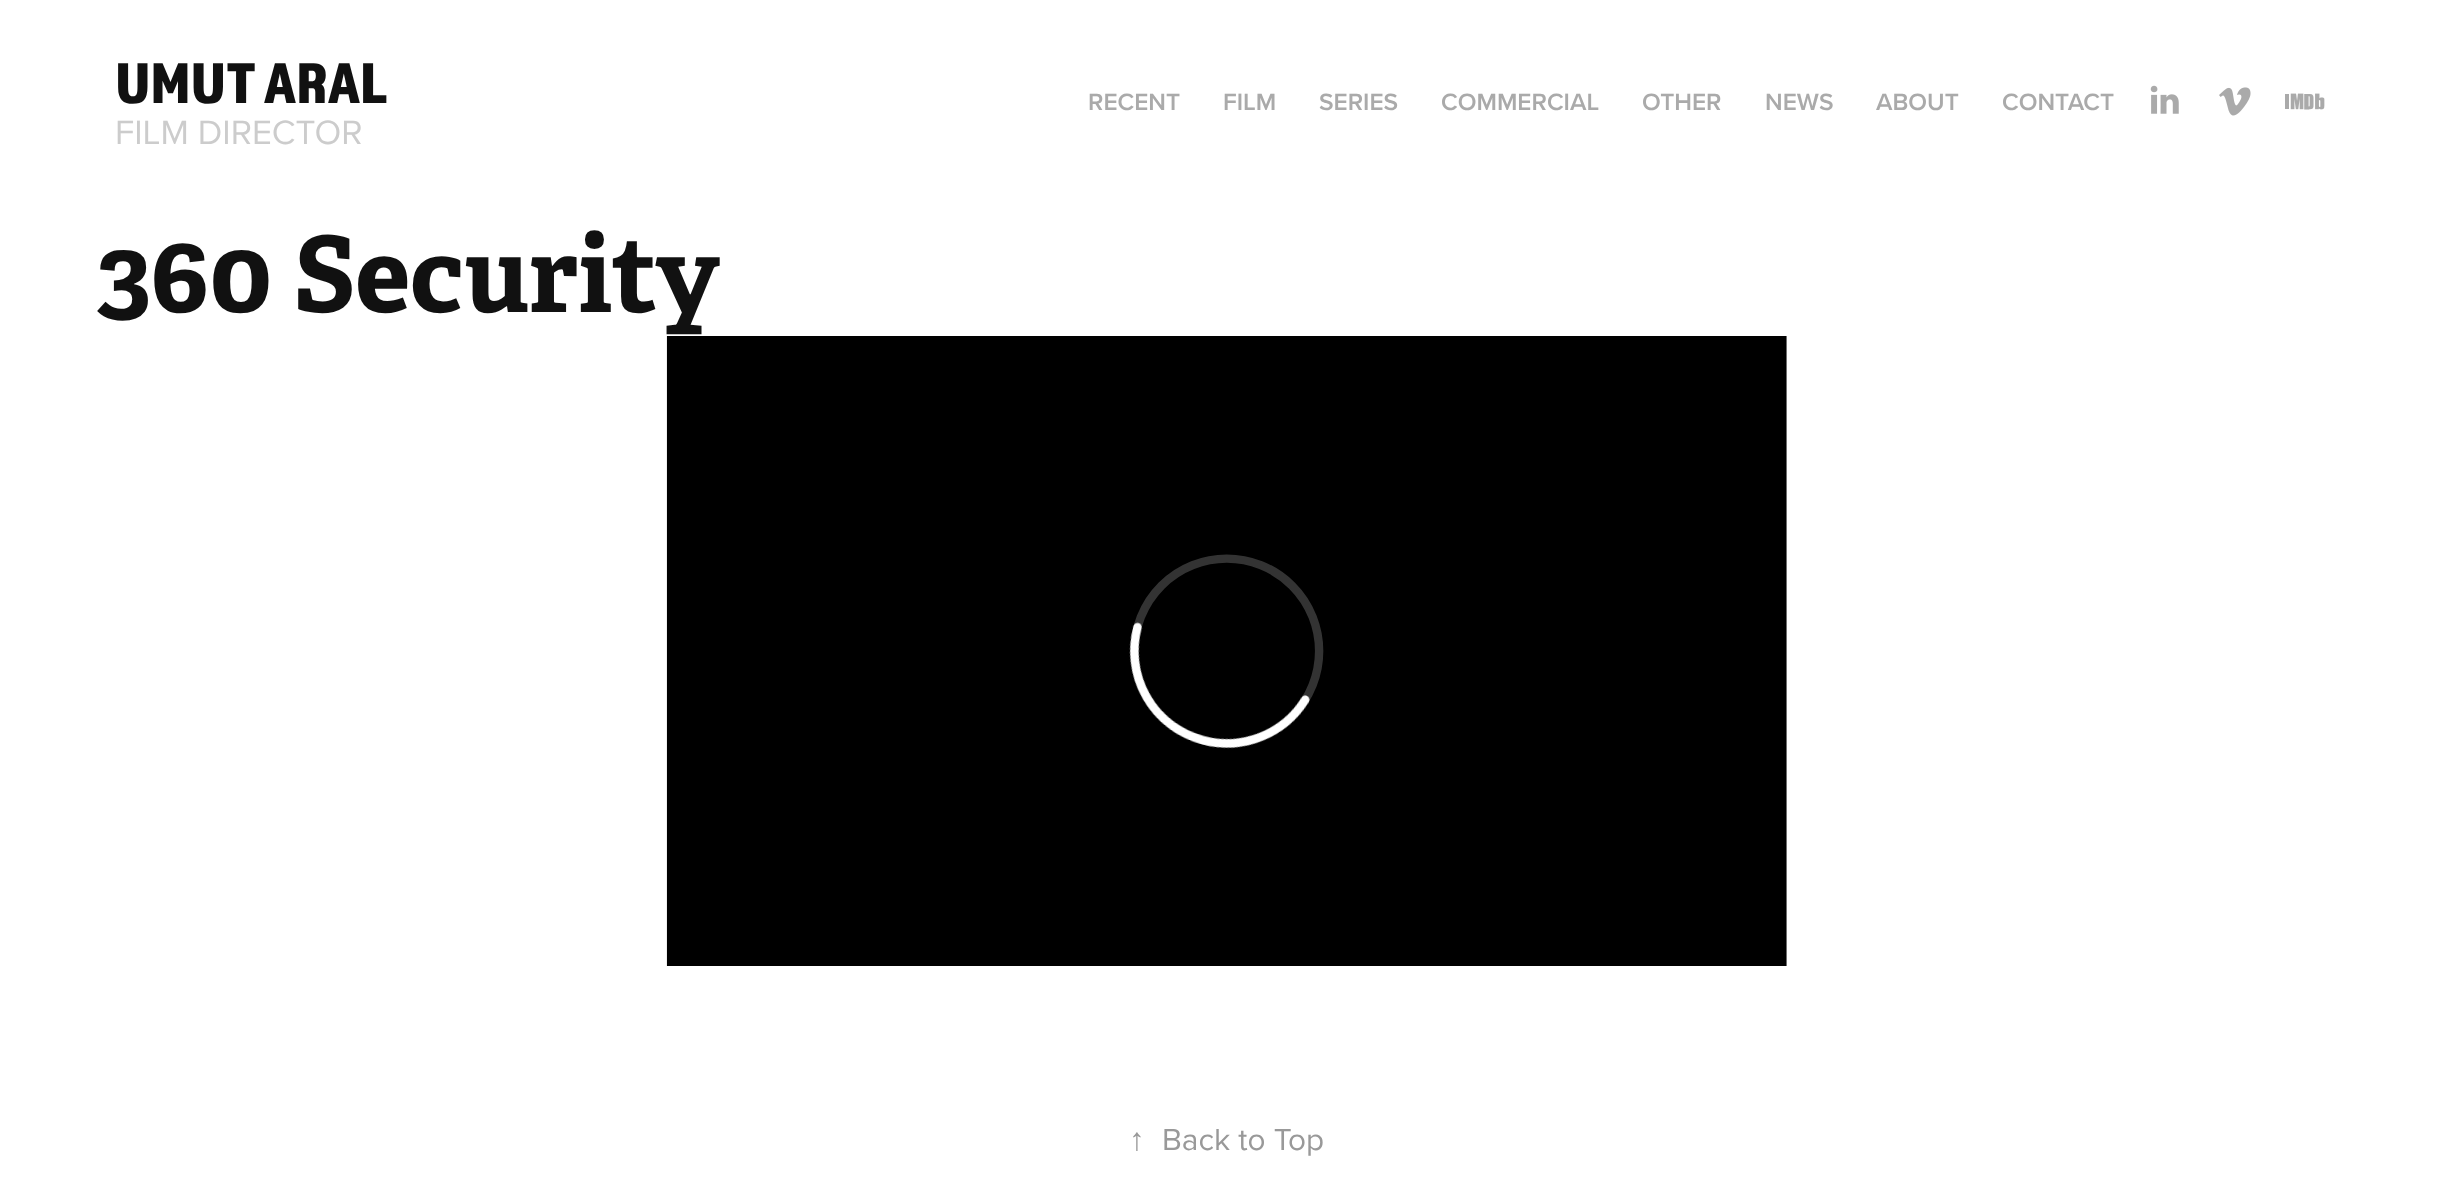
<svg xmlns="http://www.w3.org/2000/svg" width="2452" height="1184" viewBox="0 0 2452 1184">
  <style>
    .t1 { font: 59.5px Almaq; fill: #111; }
    .t2 { font: 35px Proxima Nova; fill: #ccc; }
    .t3 { font: 600 24.5px Proxima Nova; fill: #aaa; }
    .t4 { font: bold 105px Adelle; fill: #111; }
    .t5 { font: 31.5px Liberation Serif; fill: #999; }
    .t6 { font: 31.5px Proxima Nova; fill: #999; }
  </style>
  <rect width="100%" height="100%" fill="#fff"/>
  <text x="115" y="103" class="t1">UMUT ARAL</text>
  <text x="115" y="144" class="t2">FILM DIRECTOR</text>
  <text x="1088" y="110" class="t3">RECENT</text>
  <text x="1223" y="110" class="t3">FILM</text>
  <text x="1319" y="110" class="t3">SERIES</text>
  <text x="1441" y="110" class="t3">COMMERCIAL</text>
  <text x="1642" y="110" class="t3">OTHER</text>
  <text x="1765" y="110" class="t3">NEWS</text>
  <text x="1876" y="110" class="t3">ABOUT</text>
  <text x="2002" y="110" class="t3">CONTACT</text>
  <image x="2150" y="85" width="29" height="29" href="images/1.png"/>
  <image x="2219" y="87" width="32" height="29" href="images/2.png"/>
  <image x="2285" y="93" width="40" height="17" href="images/3.png"/>
  <text x="97" y="312" class="t4">360 Security</text>
  <image x="666" y="336" width="1121" height="630" href="images/4.png"/>
  <text x="1129" y="1150" class="t5">↑</text>
  <text x="1162" y="1150" class="t6">Back to Top</text>
</svg>
